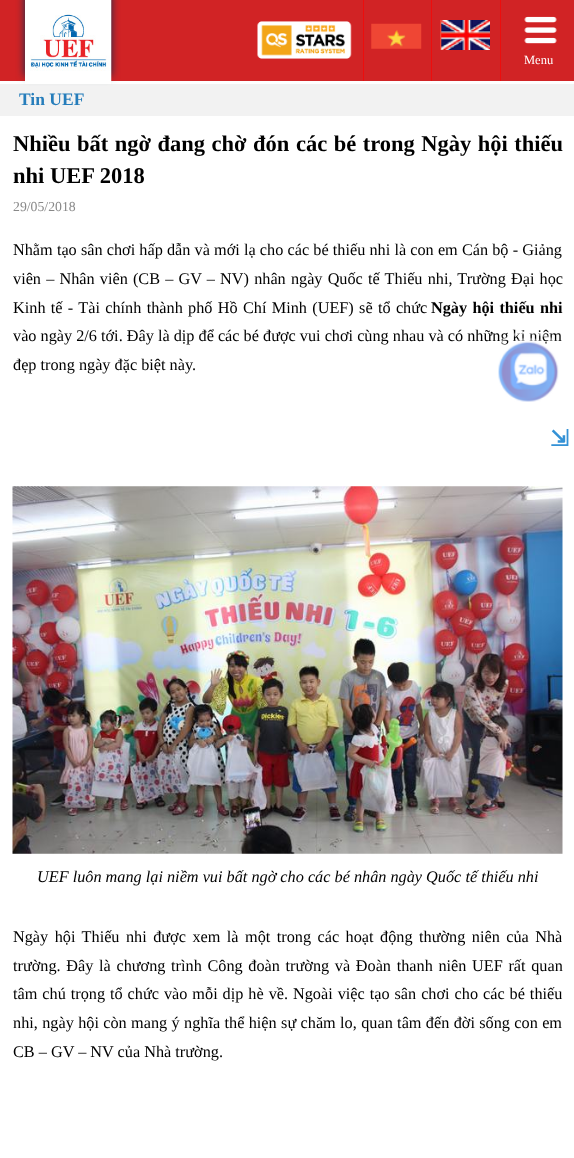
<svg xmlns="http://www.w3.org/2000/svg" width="574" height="1158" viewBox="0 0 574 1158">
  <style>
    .t1 { font: 12.5px Liberation Serif; fill: #fff; }
    .t2 { font: 16.25px Liberation Serif; fill: #000; }
    .t3 { font: bold 22.5px DejaVu Sans; fill: #3492d6; }
    .t4 { font: bold 17.5px Liberation Serif; fill: #267dbb; }
    .t5 { font: bold 22.5px Liberation Serif; fill: #000; }
    .t6 { font: 13.75px Liberation Serif; fill: #888; }
    .t7 { font: bold 16.25px Liberation Serif; fill: #000; }
    .t8 { font: italic 16.25px Liberation Serif; fill: #000; }
  </style>
  <defs>
    <clipPath id="clip1"><path d="M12 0H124V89H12ZM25 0H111V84H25Z" clip-rule="evenodd"/></clipPath>
  </defs>
  <rect width="100%" height="100%" fill="#fff"/>
  <rect x="0" y="0" width="574" height="81" fill="#d12325"/>
  <rect x="0" y="84" width="574" height="32" fill="#f2f2f2"/>
  <g clip-path="url(#clip1)">
    <rect x="25" y="-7" width="86" height="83" fill="#032f50" filter="blur(4px)"/>
  </g>
  <image x="25" y="0" width="87" height="81" href="images/1.png"/>
  <image x="257" y="21" width="95" height="38" href="images/2.png"/>
  <rect x="363" y="0" width="1" height="81" fill="#ed0d0d"/>
  <image x="371" y="23" width="51" height="26" href="images/3.png"/>
  <rect x="431" y="0" width="1" height="81" fill="#ed0d0d"/>
  <image x="440" y="20" width="50" height="30" href="images/4.png"/>
  <rect x="500" y="0" width="1" height="81" fill="#ed0d0d"/>
  <image x="524" y="16" width="33" height="28" href="images/5.png"/>
  <text x="524" y="64" class="t1">Menu</text>
  <text x="13" y="341" class="t2">vào ngày 2/6 tới. Đây là dịp để các bé được vui chơi cùng nhau và có những kỉ niệm</text>
  <image x="498" y="330" width="61" height="72" href="images/6.png"/>
  <text x="550" y="446" class="t3">⇲</text>
  <text x="19" y="105" class="t4">Tin UEF</text>
  <text x="13" y="151" word-spacing="0.9" class="t5">Nhiều bất ngờ đang chờ đón các bé trong Ngày hội thiếu</text>
  <text x="13" y="183" class="t5">nhi UEF 2018</text>
  <text x="13" y="211" class="t6">29/05/2018</text>
  <text x="13" y="255" word-spacing="0.1" class="t2">Nhằm tạo sân chơi hấp dẫn và mới lạ cho các bé thiếu nhi là con em Cán bộ - Giảng</text>
  <text x="13" y="284" word-spacing="1.1" class="t2">viên – Nhân viên (CB – GV – NV) nhân ngày Quốc tế Thiếu nhi, Trường Đại học</text>
  <text x="13" y="313" word-spacing="1.25" class="t2">Kinh tế - Tài chính thành phố Hồ Chí Minh (UEF) sẽ tổ chức</text>
  <text x="431" y="313" word-spacing="1.25" class="t7">Ngày hội thiếu nhi</text>
  <text x="13" y="370" class="t2">đẹp trong ngày đặc biệt này.</text>
  <image x="12" y="486" width="551" height="368" href="images/7.png"/>
  <text x="37" y="882" class="t8">UEF luôn mang lại niềm vui bất ngờ cho các bé nhân ngày Quốc tế thiếu nhi</text>
  <text x="13" y="942" word-spacing="2.4" class="t2">Ngày hội Thiếu nhi được xem là một trong các hoạt động thường niên của Nhà</text>
  <text x="13" y="971" word-spacing="1.6" class="t2">trường. Đây là chương trình Công đoàn trường và Đoàn thanh niên UEF rất quan</text>
  <text x="13" y="999" word-spacing="0.9" class="t2">tâm chú trọng tổ chức vào mỗi dịp hè về. Ngoài việc tạo sân chơi cho các bé thiếu</text>
  <text x="13" y="1028" word-spacing="0.3" class="t2">nhi, ngày hội còn mang ý nghĩa thể hiện sự chăm lo, quan tâm đến đời sống con em</text>
  <text x="13" y="1057" class="t2">CB – GV – NV của Nhà trường.</text>
</svg>
